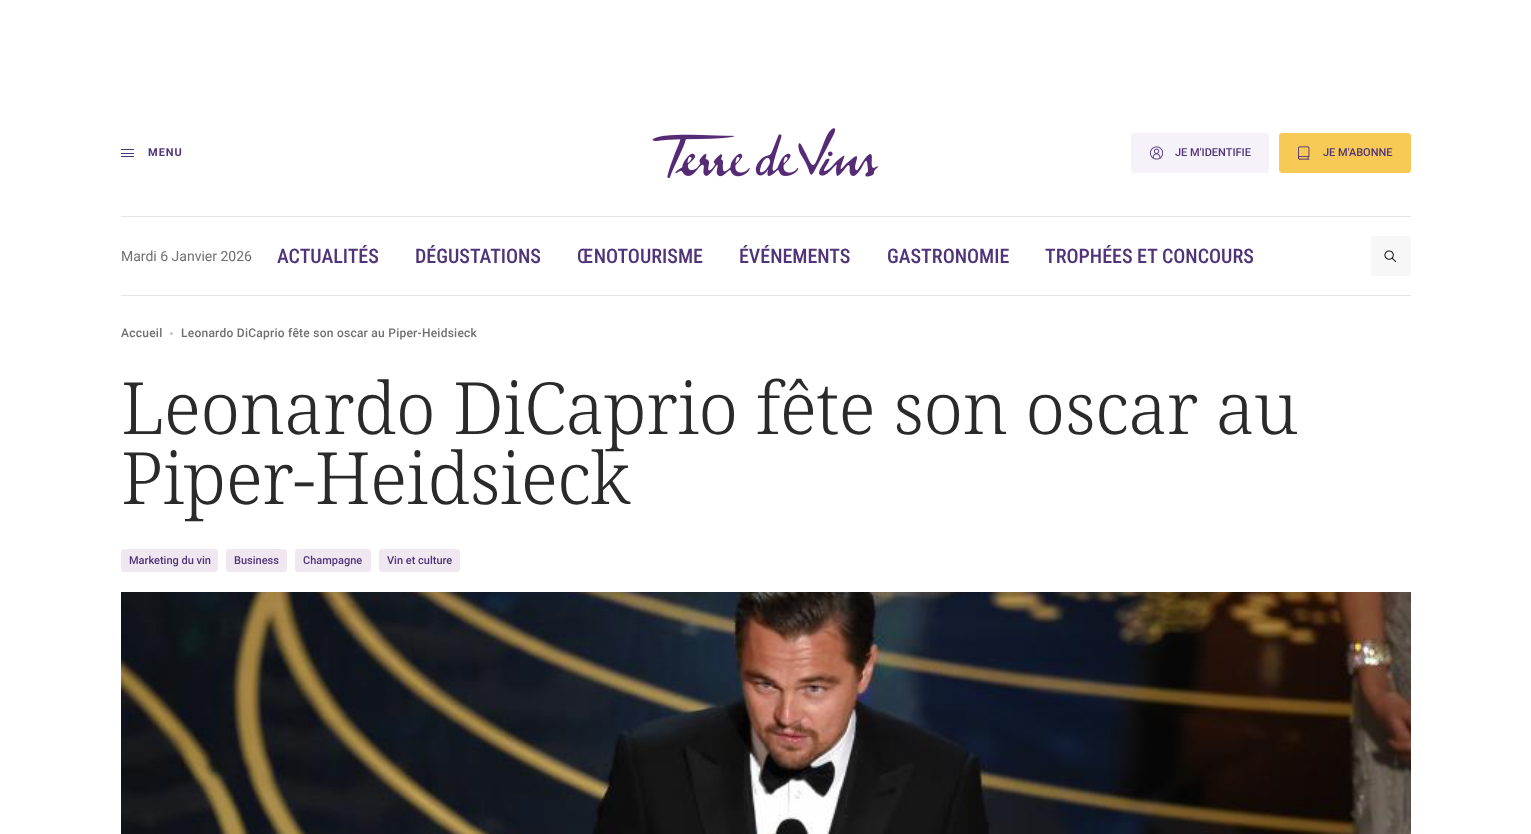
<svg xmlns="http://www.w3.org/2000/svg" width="1531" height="834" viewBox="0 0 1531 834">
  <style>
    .t1 { font: bold 11px Roboto; letter-spacing: 1px; fill: #503479; }
    .t2 { font: 500 11px Roboto; fill: #503479; }
    .t3 { font: 14px Roboto; fill: #6f6f6f; }
    .t4 { font: 500 20px Roboto Condensed; fill: #503479; }
    .t5 { font: 500 12px Roboto; letter-spacing: 0.25px; fill: #6f6f6f; }
    .t6 { font: 300 72px Noto Serif; letter-spacing: -0.7px; fill: #2a2a2a; }
  </style>
  <rect width="100%" height="100%" fill="#fff"/>
  <rect x="121" y="149" width="13" height="1" fill="#503479"/>
  <rect x="121" y="153" width="13" height="1" fill="#503479"/>
  <rect x="121" y="156" width="13" height="1" fill="#503479"/>
  <text x="148" y="156" class="t1">MENU</text>
  <image x="652" y="128" width="227" height="50" href="images/1.png"/>
  <rect x="1131.5" y="133.5" width="137" height="39" rx="2.5" fill="#f5f3f9" stroke="#f5f3f9"/>
  <image x="1150" y="146" width="13" height="14" href="images/2.png"/>
  <text x="1175" y="156" class="t2">JE M'IDENTIFIE</text>
  <rect x="1279.5" y="133.5" width="131" height="39" rx="2.5" fill="#f6ca55" stroke="#f6ca55"/>
  <image x="1298" y="146" width="12" height="14" href="images/3.png"/>
  <text x="1323" y="156" class="t2">JE M'ABONNE</text>
  <rect x="121" y="216" width="1290" height="1" fill="#e6e6e6"/>
  <rect x="121" y="295" width="1290" height="1" fill="#e6e6e6"/>
  <text x="121" y="261" class="t3">Mardi 6 Janvier 2026</text>
  <text x="277" y="263" class="t4">ACTUALITÉS</text>
  <text x="415" y="263" class="t4">DÉGUSTATIONS</text>
  <text x="577" y="263" class="t4">ŒNOTOURISME</text>
  <text x="739" y="263" class="t4">ÉVÉNEMENTS</text>
  <text x="887" y="263" class="t4">GASTRONOMIE</text>
  <text x="1045" y="263" class="t4">TROPHÉES ET CONCOURS</text>
  <rect x="1371" y="236" width="40" height="40" rx="3" fill="#f7f7f7"/>
  <image x="1384" y="250" width="13" height="13" href="images/4.png"/>
  <text x="121" y="337" class="t5">Accueil</text>
  <circle cx="171.5" cy="333.5" r="1.5" fill="#c4c4c4"/>
  <text x="181" y="337" class="t5">Leonardo DiCaprio fête son oscar au Piper-Heidsieck</text>
  <text x="121" y="434" class="t6">Leonardo DiCaprio fête son oscar au</text>
  <text x="121" y="504" class="t6">Piper-Heidsieck</text>
  <rect x="121.5" y="549.5" width="96" height="22" rx="2.5" fill="#f0e7f1" stroke="#f0e7f1"/>
  <text x="129" y="564" class="t2">Marketing du vin</text>
  <rect x="226.5" y="549.5" width="60" height="22" rx="2.5" fill="#f0e7f1" stroke="#f0e7f1"/>
  <text x="234" y="564" class="t2">Business</text>
  <rect x="295.5" y="549.5" width="75" height="22" rx="2.5" fill="#f0e7f1" stroke="#f0e7f1"/>
  <text x="303" y="564" class="t2">Champagne</text>
  <rect x="379.5" y="549.5" width="80" height="22" rx="2.5" fill="#f0e7f1" stroke="#f0e7f1"/>
  <text x="387" y="564" class="t2">Vin et culture</text>
  <image x="121" y="592" width="1290" height="242" href="images/5.png"/>
</svg>
